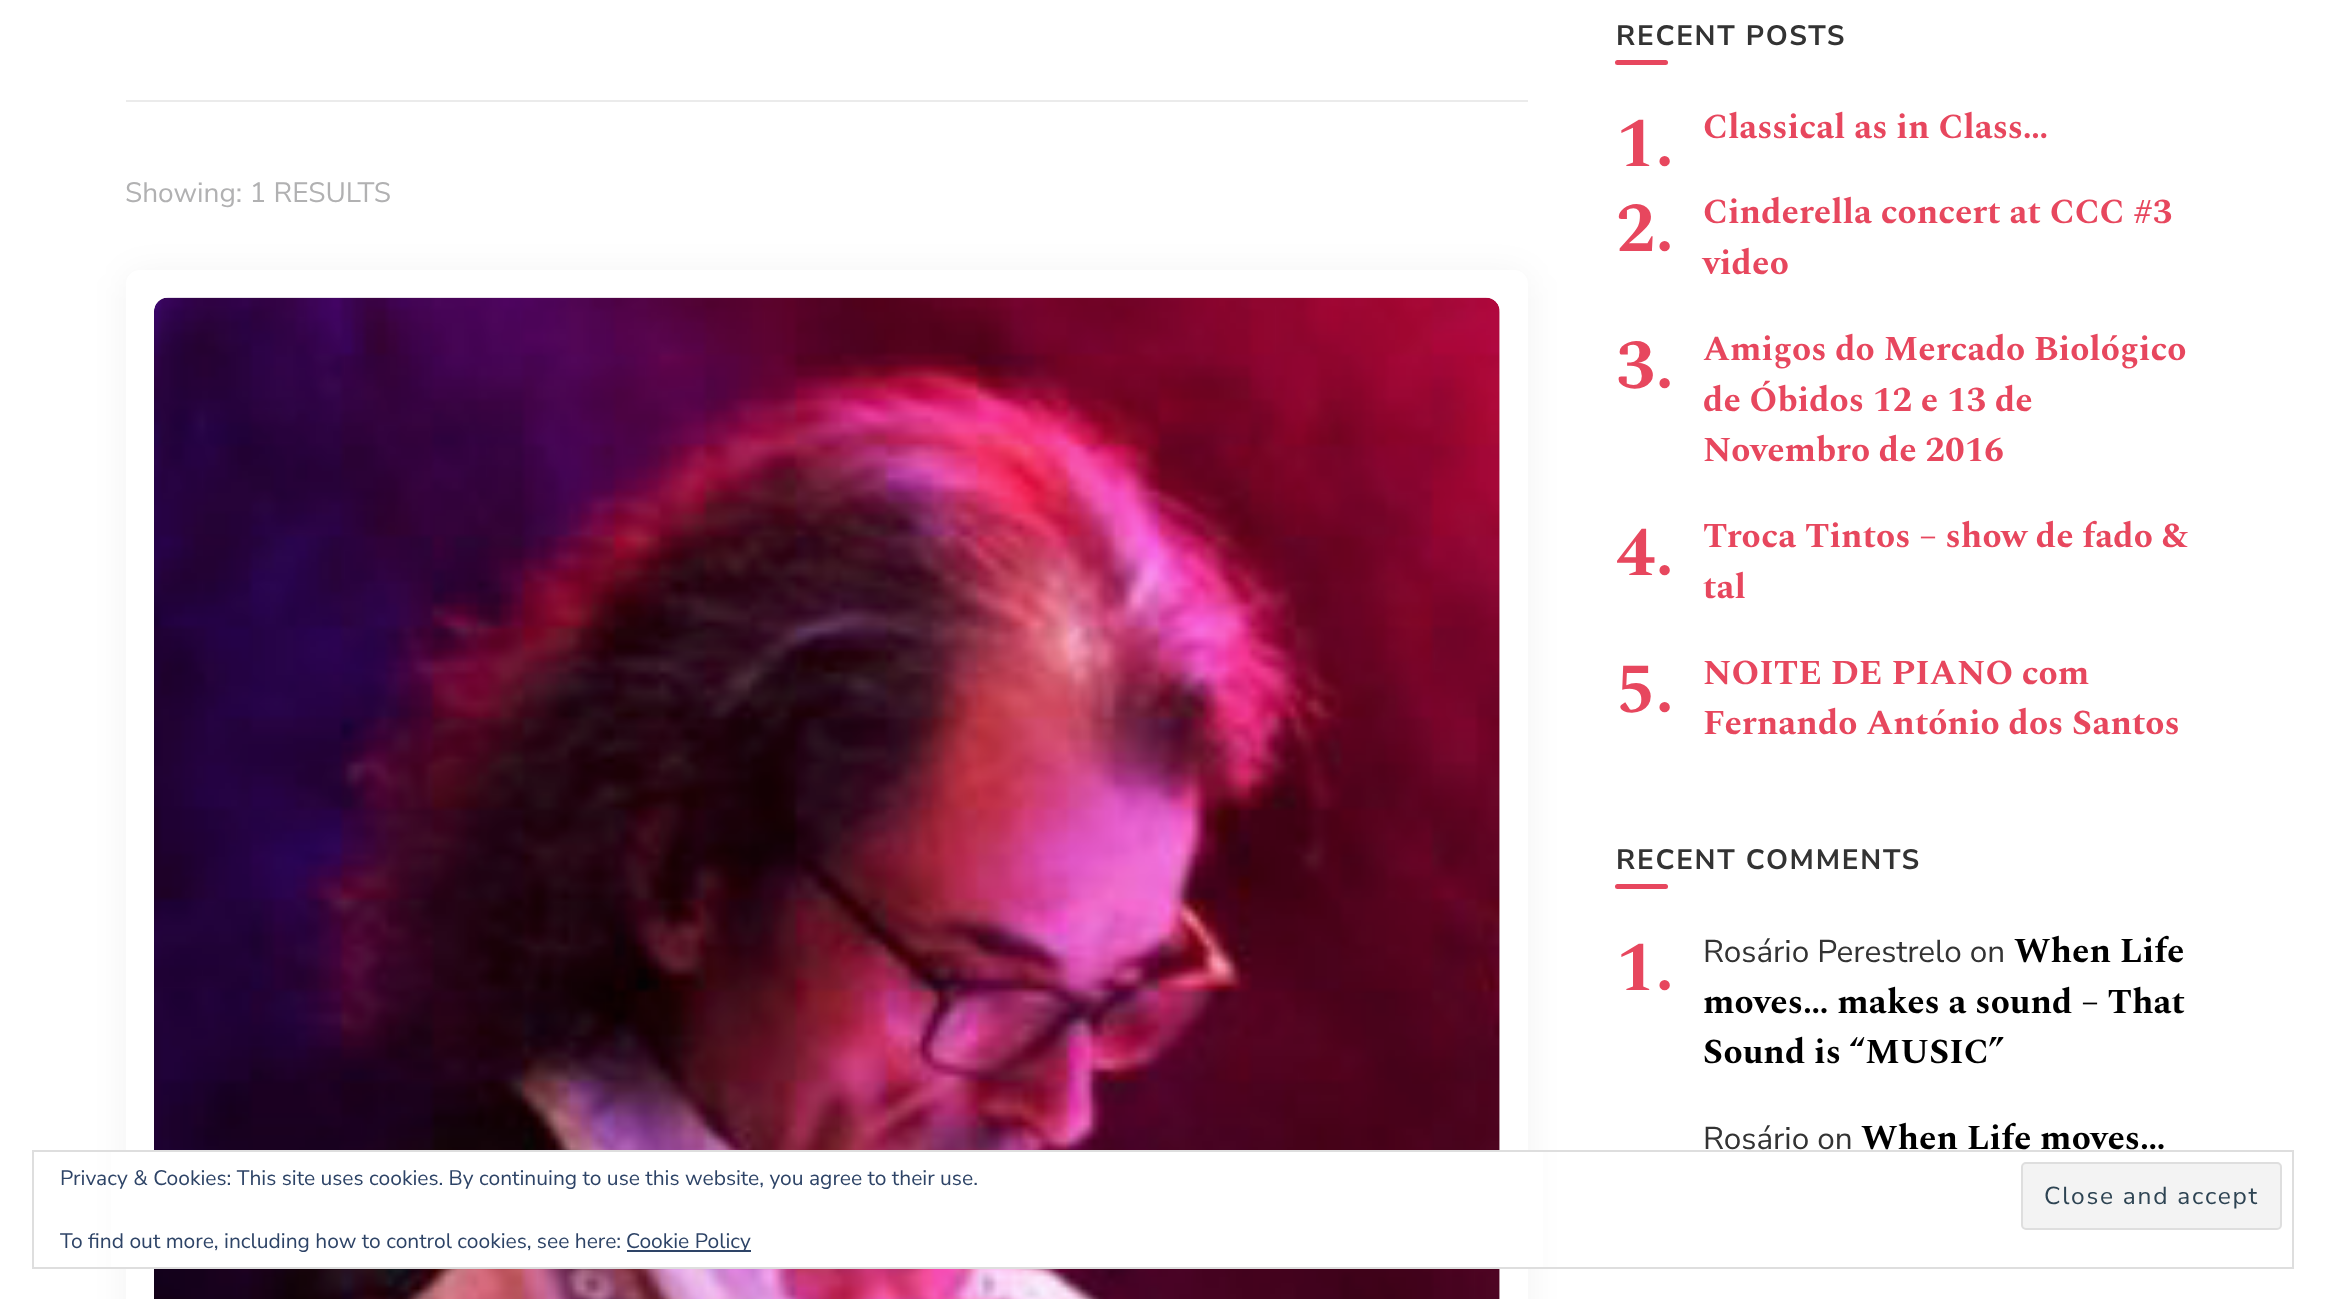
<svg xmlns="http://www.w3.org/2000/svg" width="2325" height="1299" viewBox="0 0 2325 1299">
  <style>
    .t1 { font: 28px Nunito Sans; fill: #b1b1b2; }
    .t2 { font: bold 28px Nunito Sans; letter-spacing: 1.75px; fill: #333; }
    .t3 { font: bold 70px Spectral; fill: #e7475e; }
    .t4 { font: bold 35px Spectral; fill: #e7475e; }
    .t5 { font: 31.5px Nunito Sans; fill: #333; }
    .t6 { font: bold 35px Spectral; fill: #000; }
    .t7 { font: 21px Nunito Sans; fill: #2e4467; }
    .t8 { font: 24.5px Nunito Sans; letter-spacing: 1.75px; fill: #2e4453; }
  </style>
  <rect width="100%" height="100%" fill="#fff"/>
  <rect x="126" y="100" width="1402" height="2" fill="#ebebeb"/>
  <text x="125" y="202" class="t1">Showing: 1 RESULTS</text>
  <rect x="126" y="273" width="1402" height="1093" rx="14" fill="#0000000d" filter="blur(17.5px)"/>
  <rect x="126" y="270" width="1402" height="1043" rx="14" fill="#fff"/>
  <image x="154" y="297" width="1346" height="1002" href="images/1.png"/>
  <text x="1616" y="45" class="t2">RECENT POSTS</text>
  <rect x="1615" y="60" width="53" height="5" rx="2.5" fill="#e7475e"/>
  <text x="1616" y="166" class="t3">1.</text>
  <text x="1703" y="138" class="t4">Classical as in Class…</text>
  <text x="1616" y="251" class="t3">2.</text>
  <text x="1703" y="223" class="t4">Cinderella concert at CCC #3</text>
  <text x="1703" y="274" class="t4">video</text>
  <text x="1616" y="388" class="t3">3.</text>
  <text x="1703" y="360" class="t4">Amigos do Mercado Biológico</text>
  <text x="1703" y="411" class="t4">de Óbidos 12 e 13 de</text>
  <text x="1703" y="461" class="t4">Novembro de 2016</text>
  <text x="1616" y="575" class="t3">4.</text>
  <text x="1703" y="547" class="t4">Troca Tintos – show de fado &amp;</text>
  <text x="1703" y="598" class="t4">tal</text>
  <text x="1616" y="712" class="t3">5.</text>
  <text x="1703" y="684" class="t4">NOITE DE PIANO com</text>
  <text x="1703" y="734" class="t4">Fernando António dos Santos</text>
  <text x="1616" y="869" class="t2">RECENT COMMENTS</text>
  <rect x="1615" y="884" width="53" height="5" rx="2.5" fill="#e7475e"/>
  <text x="1616" y="990" class="t3">1.</text>
  <text x="1703" y="962" class="t5">Rosário Perestrelo on</text>
  <text x="2014" y="962" class="t6">When Life</text>
  <text x="1703" y="1013" class="t6">moves… makes a sound – That</text>
  <text x="1703" y="1063" class="t6">Sound is “MUSIC”</text>
  <text x="1703" y="1149" class="t5">Rosário on</text>
  <text x="1861" y="1149" class="t6">When Life moves…</text>
  <rect x="111" y="1152" width="1432" height="115" fill="#fff"/>
  <rect x="33" y="1151" width="2260" height="117" fill="none" stroke="#dedede" stroke-width="2"/>
  <text x="60" y="1185" class="t7">Privacy &amp; Cookies: This site uses cookies. By continuing to use this website, you agree to their use.</text>
  <rect x="2022" y="1163" width="259" height="66" rx="4" fill="#f3f3f3" stroke="#dedede" stroke-width="2"/>
  <text x="2044" y="1204" class="t8">Close and accept</text>
  <text x="60" y="1248" class="t7">To find out more, including how to control cookies, see here:</text>
  <rect x="627" y="1250" width="124" height="2" fill="#2e4467"/>
  <text x="626" y="1248" class="t7">Cookie Policy</text>
</svg>
